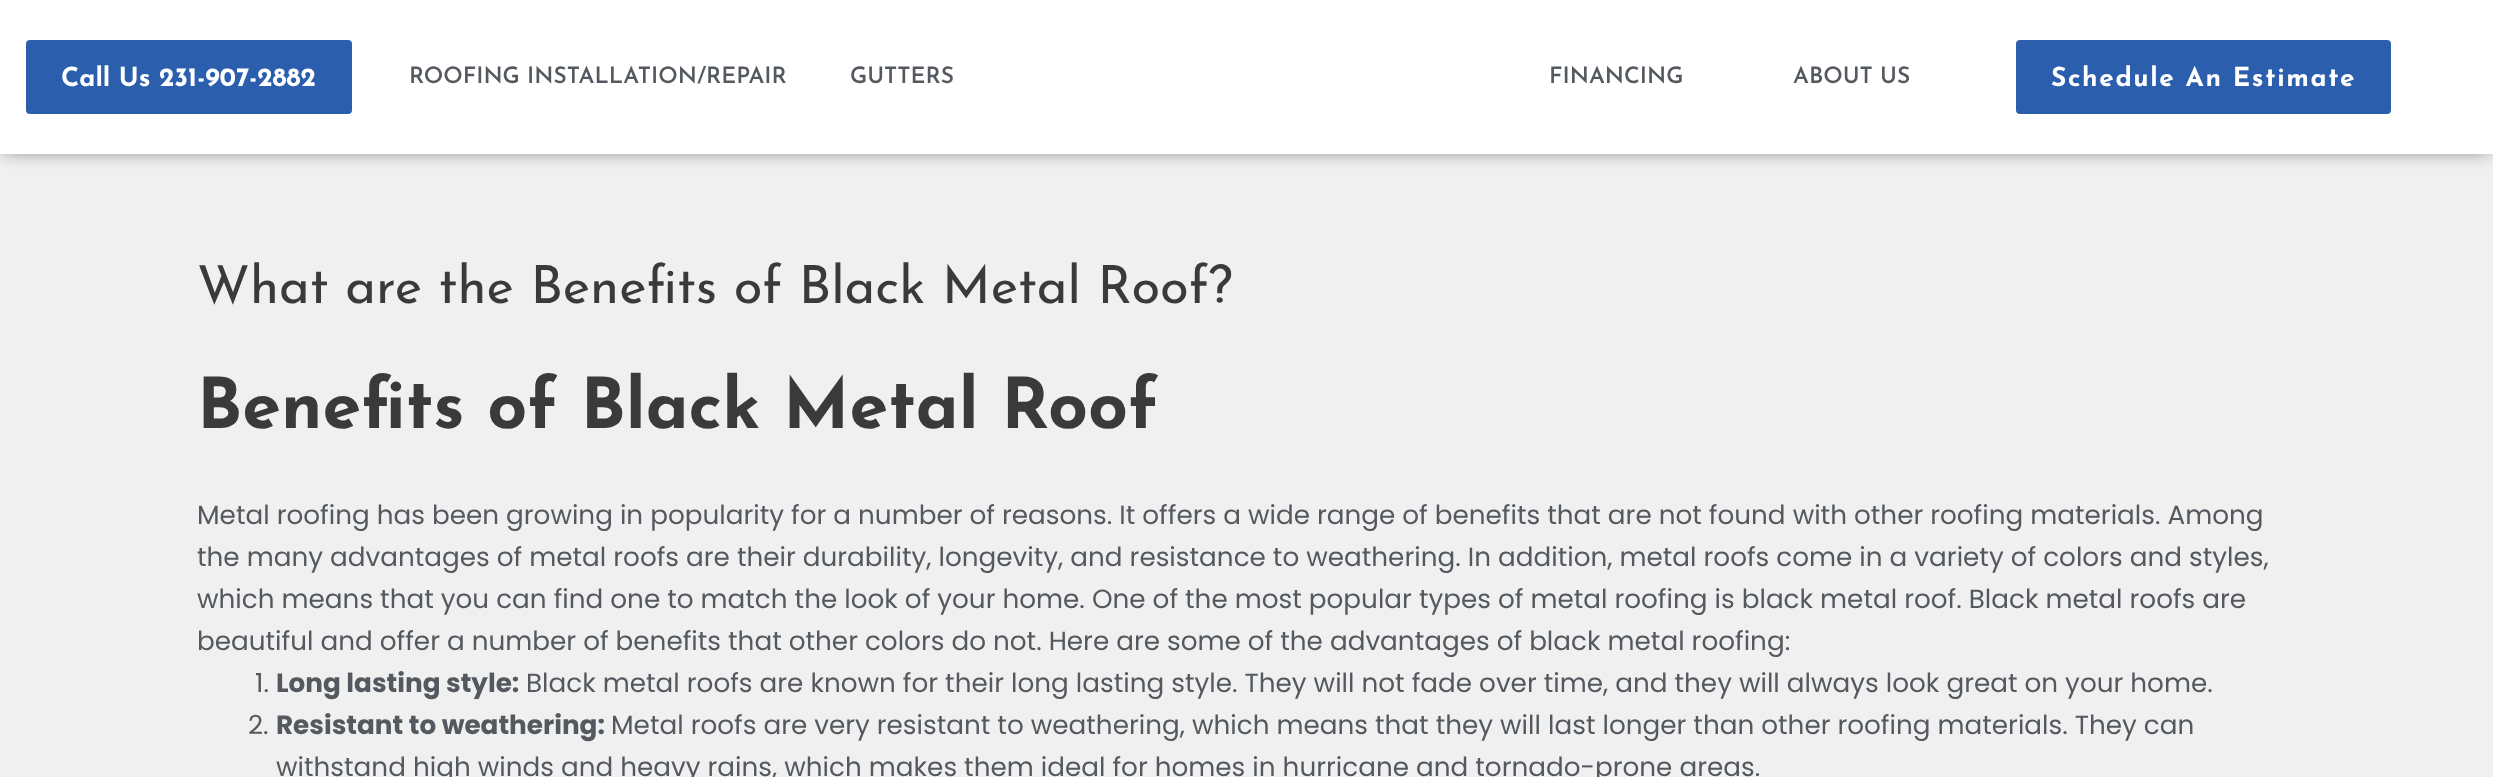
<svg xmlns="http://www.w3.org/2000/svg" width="2493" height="777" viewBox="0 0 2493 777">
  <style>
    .t1 { font: bold 26.25px Josefin Sans; fill: #fff; }
    .t2 { font: 600 22.75px Josefin Sans; fill: #54595f; }
    .t3 { font: bold 26.25px Josefin Sans; letter-spacing: 1.6px; fill: #fff; }
    .t4 { font: 52.5px Josefin Sans; fill: #3a3a3a; }
    .t5 { font: bold 70px Josefin Sans; fill: #3a3a3a; }
    .t6 { font: 26.25px Poppins; fill: #54595f; }
    .t7 { font: bold 26.25px Poppins; fill: #54595f; }
  </style>
  <rect width="100%" height="100%" fill="#f0f0f0"/>
  <rect x="4" y="4" width="2486" height="147" fill="#00000080" filter="blur(9px)"/>
  <rect x="0" y="0" width="2493" height="154" fill="#fff"/>
  <rect x="26" y="40" width="326" height="74" rx="4" fill="#2b5ead"/>
  <text x="61" y="86" class="t1">Call Us 231-907-2882</text>
  <text x="409" y="83" class="t2">ROOFING INSTALLATION/REPAIR</text>
  <text x="850" y="83" class="t2">GUTTERS</text>
  <text x="1549" y="83" class="t2">FINANCING</text>
  <text x="1793" y="83" class="t2">ABOUT US</text>
  <rect x="2016" y="40" width="375" height="74" rx="4" fill="#2b5ead"/>
  <text x="2051" y="86" class="t3">Schedule An Estimate</text>
  <text x="197" y="303" class="t4">What are the Benefits of Black Metal Roof?</text>
  <text x="197" y="428" class="t5">Benefits of Black Metal Roof</text>
  <text x="197" y="524" class="t6">Metal roofing has been growing in popularity for a number of reasons. It offers a wide range of benefits that are not found with other roofing materials. Among</text>
  <text x="197" y="566" class="t6">the many advantages of metal roofs are their durability, longevity, and resistance to weathering. In addition, metal roofs come in a variety of colors and styles,</text>
  <text x="197" y="608" class="t6">which means that you can find one to match the look of your home. One of the most popular types of metal roofing is black metal roof. Black metal roofs are</text>
  <text x="197" y="650" class="t6">beautiful and offer a number of benefits that other colors do not. Here are some of the advantages of black metal roofing:</text>
  <text x="255" y="692" class="t6">1.</text>
  <text x="276" y="692" class="t7">Long lasting style:</text>
  <text x="526" y="692" class="t6">Black metal roofs are known for their long lasting style. They will not fade over time, and they will always look great on your home.</text>
  <text x="248" y="734" class="t6">2.</text>
  <text x="276" y="734" class="t7">Resistant to weathering:</text>
  <text x="611" y="734" class="t6">Metal roofs are very resistant to weathering, which means that they will last longer than other roofing materials. They can</text>
  <text x="276" y="776" class="t6">withstand high winds and heavy rains, which makes them ideal for homes in hurricane and tornado-prone areas.</text>
</svg>
